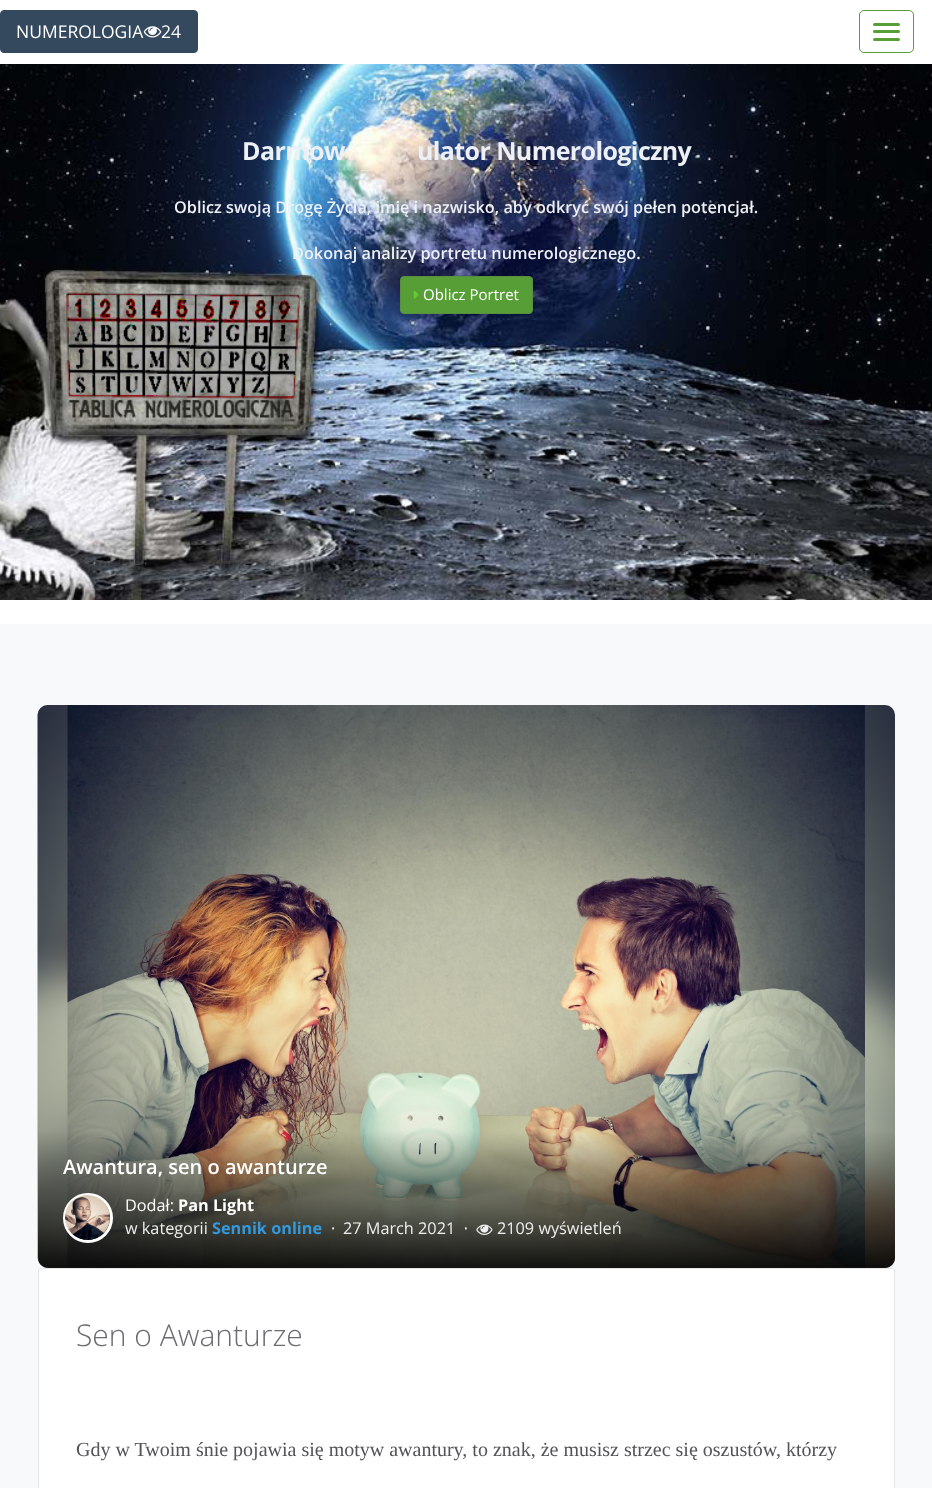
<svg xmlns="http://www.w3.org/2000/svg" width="932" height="1488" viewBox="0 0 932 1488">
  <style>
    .t1 { font: 17.5px Open Sans; fill: #fff; }
    .t2 { font: bold 25px Open Sans; letter-spacing: -0.6px; fill: #edf0f5; }
    .t3 { font: 600 16.25px Open Sans; fill: #edf0f5; }
    .t4 { font: 15px Open Sans; fill: #fff; }
    .t5 { font: 600 20px Open Sans; fill: #fff; }
    .t6 { font: 16.25px Open Sans; fill: #fff; }
    .t7 { font: bold 16.25px Open Sans; fill: #fff; }
    .t8 { font: 16.25px Open Sans; fill: #eee; }
    .t9 { font: bold 16.25px Open Sans; fill: #3498db; }
    .t10 { font: 300 30px Open Sans; fill: #6a6c6f; }
    .t11 { font: 20px Liberation Serif; fill: #515355; }
  </style>
  <defs>
    <linearGradient id="g1" gradientUnits="userSpaceOnUse" x1="466" y1="1268" x2="466" y2="1130"><stop offset="0" stop-color="#000" stop-opacity="0.9"/><stop offset="1" stop-color="#000" stop-opacity="0"/></linearGradient>
  </defs>
  <rect width="100%" height="100%" fill="#fff"/>
  <rect x="0.5" y="10.5" width="197" height="42" rx="3.5" fill="#34495e" stroke="#34495e"/>
  <text x="16" y="38" class="t1">NUMEROLOGIA</text>
  <image x="143" y="26" width="19" height="12" href="images/1.png"/>
  <text x="161" y="38" class="t1">24</text>
  <rect x="859.5" y="10.5" width="54" height="42" rx="4.5" fill="none" stroke="#589e37"/>
  <rect x="873" y="23" width="27" height="3" rx="1.5" fill="#589e37"/>
  <rect x="873" y="30" width="27" height="3" rx="1.5" fill="#589e37"/>
  <rect x="873" y="38" width="27" height="3" rx="1.5" fill="#589e37"/>
  <image x="0" y="64" width="932" height="536" href="images/2.png"/>
  <text x="242" y="160" class="t2">Darmow</text>
  <text x="417" y="160" class="t2">ulator Numerologiczny</text>
  <text x="174" y="213" class="t3">Oblicz swoją Drogę Życia, imię i nazwisko, aby odkryć swój pełen potencjał.</text>
  <text x="292" y="259" class="t3">Dokonaj analizy portretu numerologicznego.</text>
  <rect x="400.5" y="276.5" width="132" height="37" rx="3.5" fill="#589e37" stroke="#5a8e41"/>
  <image x="413" y="290" width="6" height="9" href="images/3.png"/>
  <text x="423" y="300" class="t4">Oblicz Portret</text>
  <rect x="0" y="624" width="932" height="864" fill="#f7f9fa"/>
  <rect x="38" y="705" width="857" height="563" rx="10" fill="#e9e9e9"/>
  <image x="37" y="705" width="858" height="563" href="images/4.png"/>
  <image x="67" y="705" width="798" height="563" href="images/5.png"/>
  <path d="M38 1130H895V1258C895 1263.5 890.5 1268 885 1268H48C42.5 1268 38 1263.5 38 1258Z" fill="url(#g1)"/>
  <text x="63" y="1174" class="t5">Awantura, sen o awanturze</text>
  <circle cx="88" cy="1218" r="23.5" fill="none" stroke="#fff" stroke-width="3"/>
  <image x="65" y="1195" width="45" height="45" href="images/6.png"/>
  <text x="125" y="1211" class="t6">Dodał:</text>
  <text x="178" y="1211" class="t7">Pan Light</text>
  <text x="125" y="1234" class="t8">w kategorii</text>
  <text x="212" y="1234" class="t9">Sennik online</text>
  <text x="331" y="1234" class="t8">·</text>
  <text x="343" y="1234" class="t8" xml:space="preserve">27 March 2021  ·</text>
  <image x="476" y="1224" width="17" height="11" href="images/7.png"/>
  <text x="497" y="1234" class="t8">2109 wyświetleń</text>
  <rect x="38.5" y="1268.5" width="856" height="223" rx="2" fill="#fff" stroke="#e4e5e7"/>
  <text x="76" y="1346" class="t10">Sen o Awanturze</text>
  <text x="76" y="1456" class="t11">Gdy w Twoim śnie pojawia się motyw awantury, to znak, że musisz strzec się oszustów, którzy</text>
</svg>
